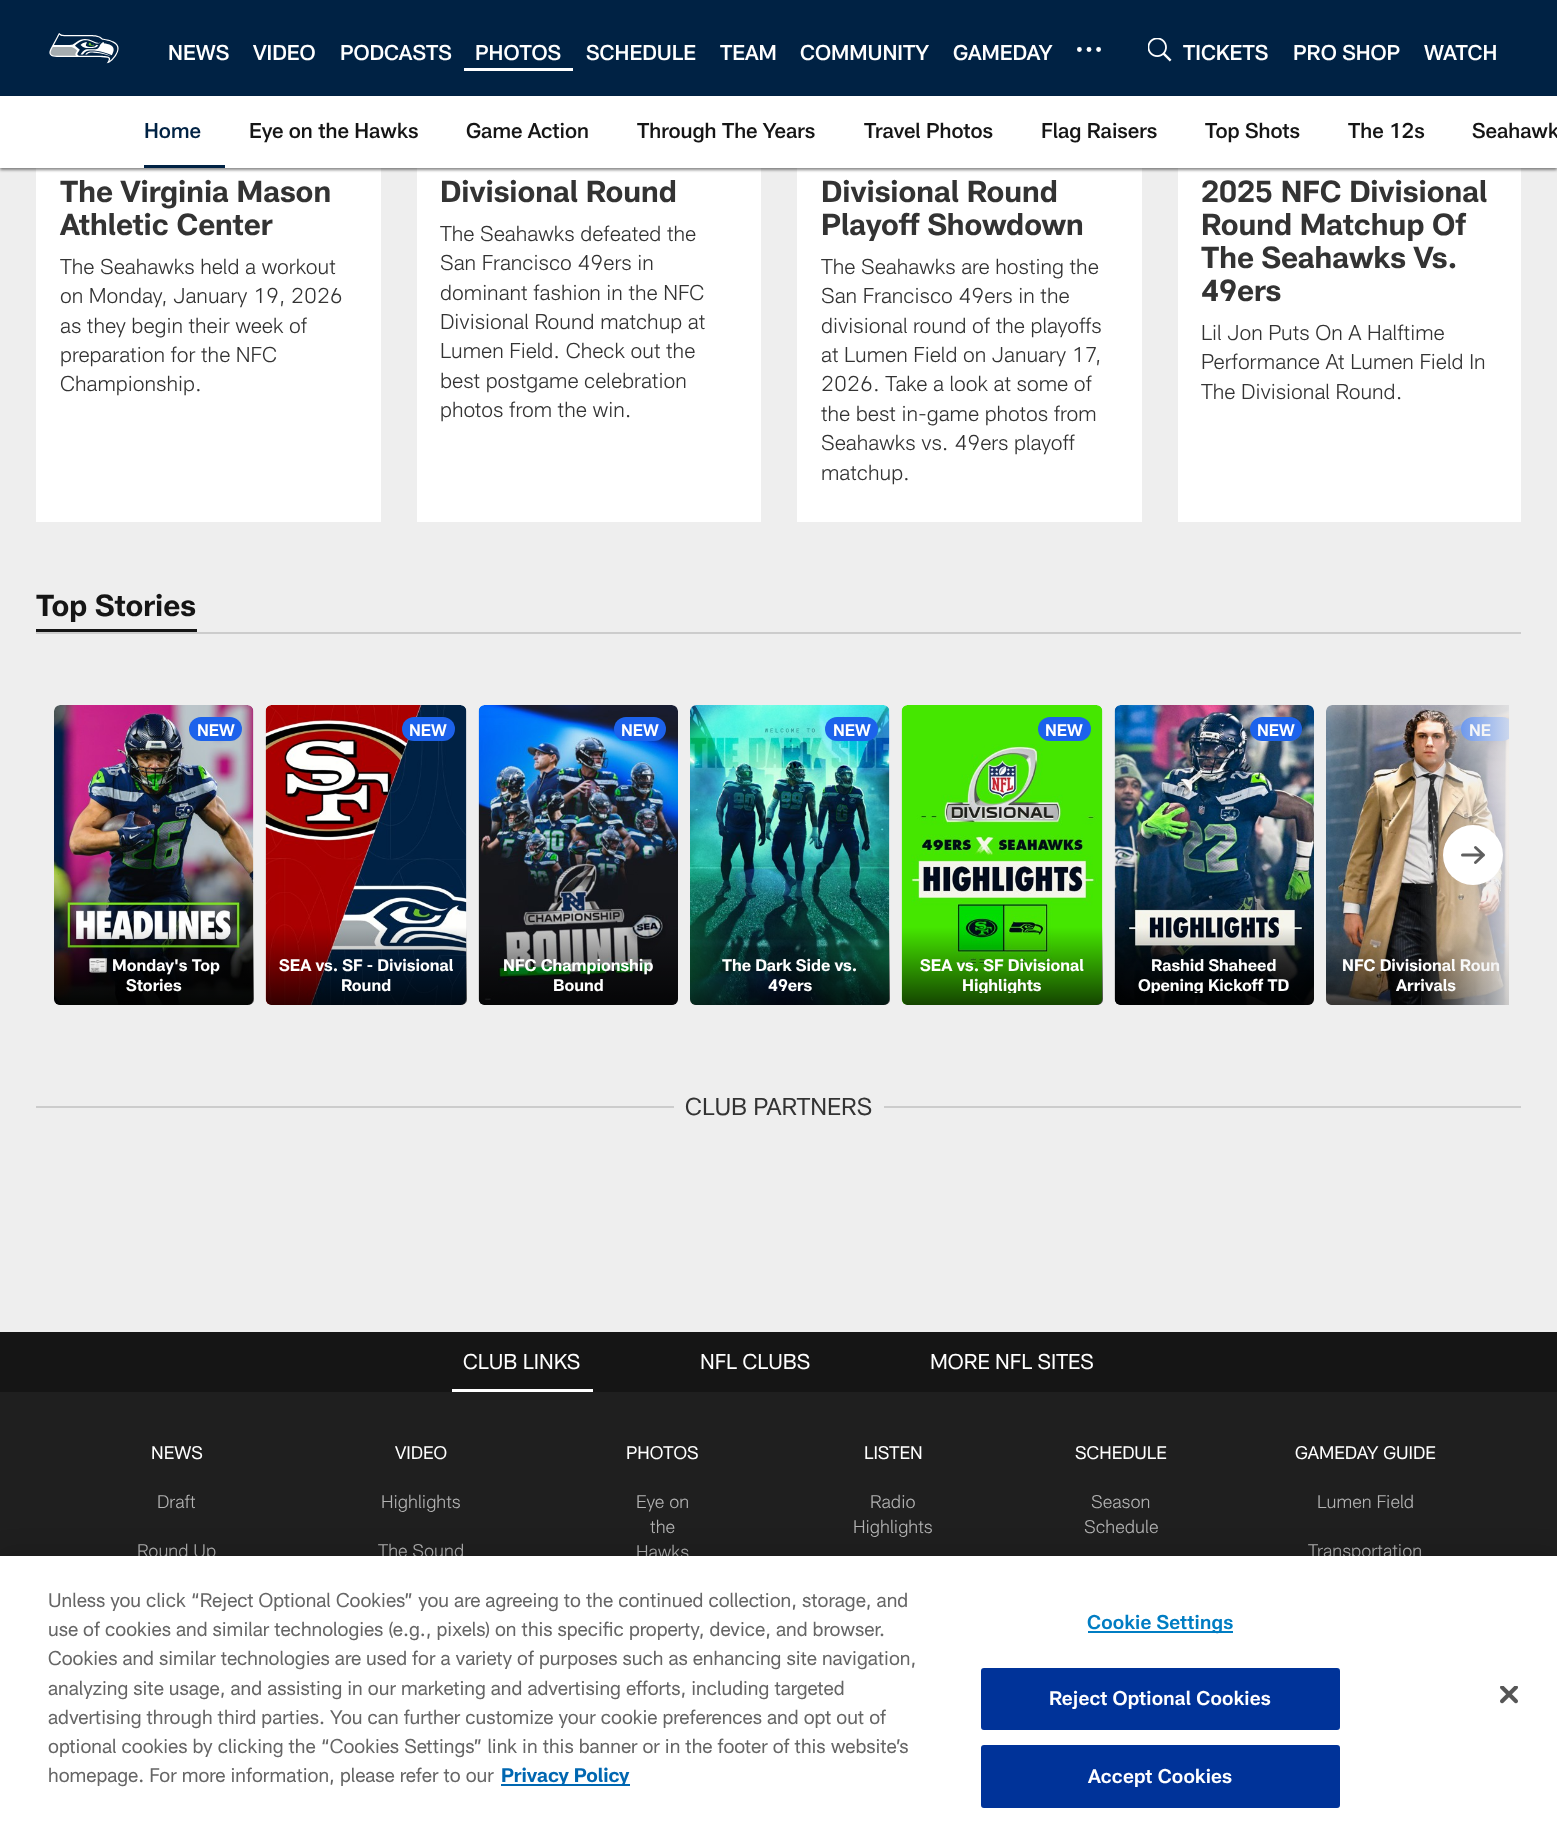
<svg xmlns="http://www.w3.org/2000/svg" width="1557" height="1837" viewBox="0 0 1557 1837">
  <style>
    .t1 { font: 500 21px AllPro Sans; fill: #fff; }
    .t2 { font: 500 21px AllPro Sans; fill: #024; }
    .t3 { font: 500 21px AllPro Sans; fill: #151515; }
    .t4 { font: bold 30px AllPro Sans; fill: #333; }
    .t5 { font: 300 21px AllPro Sans; fill: #333; }
    .t6 { font: bold 30px AllPro Sans; fill: #151515; }
    .t7 { font: 600 16.5px AllPro Sans; fill: #fff; }
    .t8 { font: bold 16.5px AllPro Sans; fill: #fff; }
    .t9 { font: bold 16.5px Noto Color Emoji; fill: #fff; }
    .t10 { font: 24px AllPro Sans; fill: #333; }
    .t11 { font: 21px AllPro Sans; fill: #fff; }
    .t12 { font: 18px AllPro Sans; fill: #fff; }
    .t13 { font: 300 18px AllPro Sans; fill: #b2b2b2; }
    .t14 { font: 19.5px AllPro Sans; fill: #666; }
    .t15 { font: bold 19.5px AllPro Sans; fill: #0067b1; }
    .t16 { font: 600 19.5px AllPro Sans; letter-spacing: 0.2px; fill: #007dc3; }
    .t17 { font: 600 19.5px AllPro Sans; letter-spacing: 0.2px; fill: #fff; }
  </style>
  <defs>
    <clipPath id="clip1"><rect x="48" y="699" width="1461" height="312"/></clipPath>
    <linearGradient id="g1" gradientUnits="userSpaceOnUse" x1="1426" y1="927" x2="1426" y2="1007"><stop offset="0" stop-color="#000" stop-opacity="0"/><stop offset="1" stop-color="#000" stop-opacity="0.72"/></linearGradient>
    <linearGradient id="g2" gradientUnits="userSpaceOnUse" x1="1527" y1="855" x2="1419" y2="855"><stop offset="0" stop-color="#eee"/><stop offset="1" stop-color="#eee" stop-opacity="0"/></linearGradient>
    <linearGradient id="g3" gradientUnits="userSpaceOnUse" x1="154" y1="927" x2="154" y2="1007"><stop offset="0" stop-color="#000" stop-opacity="0"/><stop offset="1" stop-color="#000" stop-opacity="0.72"/></linearGradient>
    <linearGradient id="g4" gradientUnits="userSpaceOnUse" x1="366" y1="927" x2="366" y2="1007"><stop offset="0" stop-color="#000" stop-opacity="0"/><stop offset="1" stop-color="#000" stop-opacity="0.72"/></linearGradient>
    <linearGradient id="g5" gradientUnits="userSpaceOnUse" x1="578" y1="927" x2="578" y2="1007"><stop offset="0" stop-color="#000" stop-opacity="0"/><stop offset="1" stop-color="#000" stop-opacity="0.72"/></linearGradient>
    <linearGradient id="g6" gradientUnits="userSpaceOnUse" x1="790" y1="927" x2="790" y2="1007"><stop offset="0" stop-color="#000" stop-opacity="0"/><stop offset="1" stop-color="#000" stop-opacity="0.72"/></linearGradient>
    <linearGradient id="g7" gradientUnits="userSpaceOnUse" x1="1002" y1="927" x2="1002" y2="1007"><stop offset="0" stop-color="#000" stop-opacity="0"/><stop offset="1" stop-color="#000" stop-opacity="0.72"/></linearGradient>
    <clipPath id="clip2"><rect x="914" y="954" width="177" height="39"/></clipPath>
    <linearGradient id="g8" gradientUnits="userSpaceOnUse" x1="1214" y1="927" x2="1214" y2="1007"><stop offset="0" stop-color="#000" stop-opacity="0"/><stop offset="1" stop-color="#000" stop-opacity="0.72"/></linearGradient>
    <clipPath id="clip3"><rect x="1127" y="954" width="175" height="39"/></clipPath>
  </defs>
  <rect width="100%" height="100%" fill="#eee"/>
  <rect x="0" y="0" width="1557" height="96" fill="#024"/>
  <image x="49" y="33" width="70" height="31" href="images/1.png"/>
  <text x="168" y="60" class="t1">NEWS</text>
  <text x="253" y="60" class="t1">VIDEO</text>
  <text x="340" y="60" class="t1">PODCASTS</text>
  <rect x="464" y="68" width="109" height="3" fill="#fff"/>
  <text x="475" y="60" class="t1">PHOTOS</text>
  <text x="586" y="60" class="t1">SCHEDULE</text>
  <text x="720" y="60" class="t1">TEAM</text>
  <text x="800" y="60" class="t1">COMMUNITY</text>
  <text x="953" y="60" class="t1">GAMEDAY</text>
  <circle cx="1098.6" cy="49.5" r="2.4" fill="#fff"/>
  <circle cx="1089" cy="49.5" r="2.4" fill="#fff"/>
  <circle cx="1079.4" cy="49.5" r="2.4" fill="#fff"/>
  <image x="1148" y="38" width="24" height="24" href="images/2.png"/>
  <text x="1183" y="60" class="t1">TICKETS</text>
  <text x="1293" y="60" class="t1">PRO SHOP</text>
  <text x="1424" y="60" class="t1">WATCH</text>
  <rect x="36" y="168" width="345" height="354" fill="#fff"/>
  <rect x="417" y="168" width="344" height="354" fill="#fff"/>
  <rect x="797" y="168" width="345" height="354" fill="#fff"/>
  <rect x="1178" y="168" width="343" height="354" fill="#fff"/>
  <rect x="0" y="98" width="1557" height="72" fill="#00000078" filter="blur(1.5px)"/>
  <rect x="0" y="96" width="1557" height="72" fill="#fff"/>
  <rect x="144" y="165" width="81" height="3" fill="#024"/>
  <text x="144" y="138" class="t2">Home</text>
  <text x="249" y="138" class="t3">Eye on the Hawks</text>
  <text x="466" y="138" class="t3">Game Action</text>
  <text x="637" y="138" class="t3">Through The Years</text>
  <text x="864" y="138" class="t3">Travel Photos</text>
  <text x="1041" y="138" class="t3">Flag Raisers</text>
  <text x="1205" y="138" class="t3">Top Shots</text>
  <text x="1348" y="138" class="t3">The 12s</text>
  <text x="1472" y="138" class="t3">Seahawk</text>
  <text x="60" y="202" class="t4">The Virginia Mason</text>
  <text x="60" y="235" class="t4">Athletic Center</text>
  <text x="60" y="274" class="t5">The Seahawks held a workout</text>
  <text x="60" y="303" class="t5">on Monday, January 19, 2026</text>
  <text x="60" y="333" class="t5">as they begin their week of</text>
  <text x="60" y="362" class="t5">preparation for the NFC</text>
  <text x="60" y="391" class="t5">Championship.</text>
  <text x="440" y="202" class="t4">Divisional Round</text>
  <text x="440" y="241" class="t5">The Seahawks defeated the</text>
  <text x="440" y="270" class="t5">San Francisco 49ers in</text>
  <text x="440" y="300" class="t5">dominant fashion in the NFC</text>
  <text x="440" y="329" class="t5">Divisional Round matchup at</text>
  <text x="440" y="358" class="t5">Lumen Field. Check out the</text>
  <text x="440" y="388" class="t5">best postgame celebration</text>
  <text x="440" y="417" class="t5">photos from the win.</text>
  <text x="821" y="202" class="t4">Divisional Round</text>
  <text x="821" y="235" class="t4">Playoff Showdown</text>
  <text x="821" y="274" class="t5">The Seahawks are hosting the</text>
  <text x="821" y="303" class="t5">San Francisco 49ers in the</text>
  <text x="821" y="333" class="t5">divisional round of the playoffs</text>
  <text x="821" y="362" class="t5">at Lumen Field on January 17,</text>
  <text x="821" y="391" class="t5">2026. Take a look at some of</text>
  <text x="821" y="421" class="t5">the best in-game photos from</text>
  <text x="821" y="450" class="t5">Seahawks vs. 49ers playoff</text>
  <text x="821" y="480" class="t5">matchup.</text>
  <text x="1201" y="202" class="t4">2025 NFC Divisional</text>
  <text x="1201" y="235" class="t4">Round Matchup Of</text>
  <text x="1201" y="268" class="t4">The Seahawks Vs.</text>
  <text x="1201" y="301" class="t4">49ers</text>
  <text x="1201" y="340" class="t5">Lil Jon Puts On A Halftime</text>
  <text x="1201" y="369" class="t5">Performance At Lumen Field In</text>
  <text x="1201" y="399" class="t5">The Divisional Round.</text>
  <rect x="36" y="632" width="1485" height="2" fill="#ccc"/>
  <rect x="36" y="629" width="161" height="3" fill="#151515"/>
  <text x="36" y="616" class="t6">Top Stories</text>
  <image x="1326" y="705" width="183" height="300" href="images/9.png"/>
  <g clip-path="url(#clip1)">
    <rect x="1461" y="717" width="53" height="24" rx="12" fill="#1c62eb"/>
  </g>
  <text x="1469" y="736" class="t7">NE</text>
  <path d="M1326 927H1509V1005H1332C1328.5 1005 1326 1002.5 1326 999Z" fill="url(#g1)"/>
  <text x="1342" y="971" class="t8">NFC Divisional Roun</text>
  <text x="1396" y="991" class="t8">Arrivals</text>
  <rect x="1421" y="705" width="88" height="300" fill="url(#g2)"/>
  <circle cx="1473" cy="855" r="30" fill="#fff"/>
  <path d="M1475.5 847.5L1483.5 855M1483.5 855L1475.5 862.5M1483.5 855H1462.5" fill="none" stroke="#5f5f5f" stroke-width="3" stroke-linecap="round" stroke-linejoin="round"/>
  <image x="54" y="705" width="200" height="300" href="images/3.png"/>
  <rect x="189" y="717" width="53" height="24" rx="12" fill="#1c62eb"/>
  <text x="197" y="736" class="t7">NEW</text>
  <path d="M54 927H254V999C254 1002.5 251.5 1005 248 1005H60C56.5 1005 54 1002.5 54 999Z" fill="url(#g3)"/>
  <text x="88" y="971" class="t9">📰</text>
  <text x="112" y="971" class="t8">Monday's Top</text>
  <text x="126" y="991" class="t8">Stories</text>
  <image x="265" y="705" width="202" height="300" href="images/4.png"/>
  <rect x="402" y="717" width="53" height="24" rx="12" fill="#1c62eb"/>
  <text x="409" y="736" class="t7">NEW</text>
  <path d="M266 927H467V999C467 1002.5 464.5 1005 461 1005H272C268.5 1005 266 1002.5 266 999Z" fill="url(#g4)"/>
  <text x="279" y="971" class="t8">SEA vs. SF - Divisional</text>
  <text x="341" y="991" class="t8">Round</text>
  <image x="478" y="705" width="200" height="300" href="images/5.png"/>
  <rect x="614" y="717" width="52" height="24" rx="12" fill="#1c62eb"/>
  <text x="621" y="736" class="t7">NEW</text>
  <path d="M479 927H678V999C678 1002.5 675.5 1005 672 1005H485C481.5 1005 479 1002.5 479 999Z" fill="url(#g5)"/>
  <text x="503" y="971" class="t8">NFC Championship</text>
  <text x="553" y="991" class="t8">Bound</text>
  <image x="690" y="705" width="200" height="300" href="images/6.png"/>
  <rect x="825" y="717" width="53" height="24" rx="12" fill="#1c62eb"/>
  <text x="833" y="736" class="t7">NEW</text>
  <path d="M690 927H890V999C890 1002.5 887.5 1005 884 1005H696C692.5 1005 690 1002.5 690 999Z" fill="url(#g6)"/>
  <text x="722" y="971" class="t8">The Dark Side vs.</text>
  <text x="768" y="991" class="t8">49ers</text>
  <image x="901" y="705" width="202" height="300" href="images/7.png"/>
  <rect x="1038" y="717" width="53" height="24" rx="12" fill="#1c62eb"/>
  <text x="1045" y="736" class="t7">NEW</text>
  <path d="M902 927H1103V999C1103 1002.5 1100.5 1005 1097 1005H908C904.5 1005 902 1002.5 902 999Z" fill="url(#g7)"/>
  <text x="920" y="971" class="t8">SEA vs. SF Divisional</text>
  <g clip-path="url(#clip2)">
    <text x="962" y="991" class="t8">Highlights</text>
  </g>
  <image x="1114" y="705" width="200" height="300" href="images/8.png"/>
  <rect x="1250" y="717" width="52" height="24" rx="12" fill="#1c62eb"/>
  <text x="1257" y="736" class="t7">NEW</text>
  <path d="M1115 927H1314V999C1314 1002.5 1311.5 1005 1308 1005H1121C1117.5 1005 1115 1002.5 1115 999Z" fill="url(#g8)"/>
  <text x="1151" y="971" class="t8">Rashid Shaheed</text>
  <g clip-path="url(#clip3)">
    <text x="1138" y="991" class="t8">Opening Kickoff TD</text>
  </g>
  <rect x="36" y="1106" width="638" height="2" fill="#ccc"/>
  <text x="685" y="1115" class="t10">CLUB PARTNERS</text>
  <rect x="884" y="1106" width="637" height="2" fill="#ccc"/>
  <rect x="0" y="1392" width="1557" height="164" fill="#1f1f1f"/>
  <rect x="0" y="1332" width="1557" height="60" fill="#151515"/>
  <rect x="452" y="1389" width="141" height="3" fill="#fff"/>
  <text x="463" y="1369" class="t11">CLUB LINKS</text>
  <text x="700" y="1369" class="t11">NFL CLUBS</text>
  <text x="930" y="1369" class="t11">MORE NFL SITES</text>
  <text x="151" y="1459" class="t12">NEWS</text>
  <text x="157" y="1508" class="t13">Draft</text>
  <text x="137" y="1557" class="t13">Round Up</text>
  <text x="395" y="1459" class="t12">VIDEO</text>
  <text x="381" y="1508" class="t13">Highlights</text>
  <text x="378" y="1557" class="t13">The Sound</text>
  <text x="626" y="1459" class="t12">PHOTOS</text>
  <text x="636" y="1508" class="t13">Eye on</text>
  <text x="650" y="1533" class="t13">the</text>
  <text x="636" y="1558" class="t13">Hawks</text>
  <text x="864" y="1459" class="t12">LISTEN</text>
  <text x="870" y="1508" class="t13">Radio</text>
  <text x="853" y="1533" class="t13">Highlights</text>
  <text x="1075" y="1459" class="t12">SCHEDULE</text>
  <text x="1091" y="1508" class="t13">Season</text>
  <text x="1084" y="1533" class="t13">Schedule</text>
  <text x="1295" y="1459" class="t12">GAMEDAY GUIDE</text>
  <text x="1317" y="1508" class="t13">Lumen Field</text>
  <text x="1308" y="1557" class="t13">Transportation</text>
  <rect x="0" y="1556" width="1557" height="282" fill="#00000033" filter="blur(13.5px)"/>
  <rect x="0" y="1556" width="1557" height="281" fill="#fff"/>
  <text x="48" y="1607" class="t14">Unless you click “Reject Optional Cookies” you are agreeing to the continued collection, storage, and</text>
  <text x="48" y="1636" class="t14">use of cookies and similar technologies (e.g., pixels) on this specific property, device, and browser.</text>
  <text x="48" y="1665" class="t14">Cookies and similar technologies are used for a variety of purposes such as enhancing site navigation,</text>
  <text x="48" y="1695" class="t14">analyzing site usage, and assisting in our marketing and advertising efforts, including targeted</text>
  <text x="48" y="1724" class="t14">advertising through third parties. You can further customize your cookie preferences and opt out of</text>
  <text x="48" y="1753" class="t14">optional cookies by clicking the “Cookies Settings” link in this banner or in the footer of this website’s</text>
  <text x="48" y="1782" class="t14">homepage. For more information, please refer to our</text>
  <rect x="501" y="1784" width="129" height="2" fill="#0067b1"/>
  <text x="501" y="1782" class="t15">Privacy Policy</text>
  <rect x="1088" y="1631" width="145" height="2" fill="#007dc3"/>
  <text x="1087" y="1629" class="t16">Cookie Settings</text>
  <rect x="982" y="1669" width="357" height="60" rx="2" fill="#039" stroke="#039" stroke-width="2"/>
  <text x="1049" y="1705" class="t17">Reject Optional Cookies</text>
  <rect x="982" y="1746" width="357" height="61" rx="2" fill="#039" stroke="#039" stroke-width="2"/>
  <text x="1088" y="1783" class="t17">Accept Cookies</text>
  <image x="1500" y="1686" width="18" height="18" href="images/10.png"/>
</svg>
